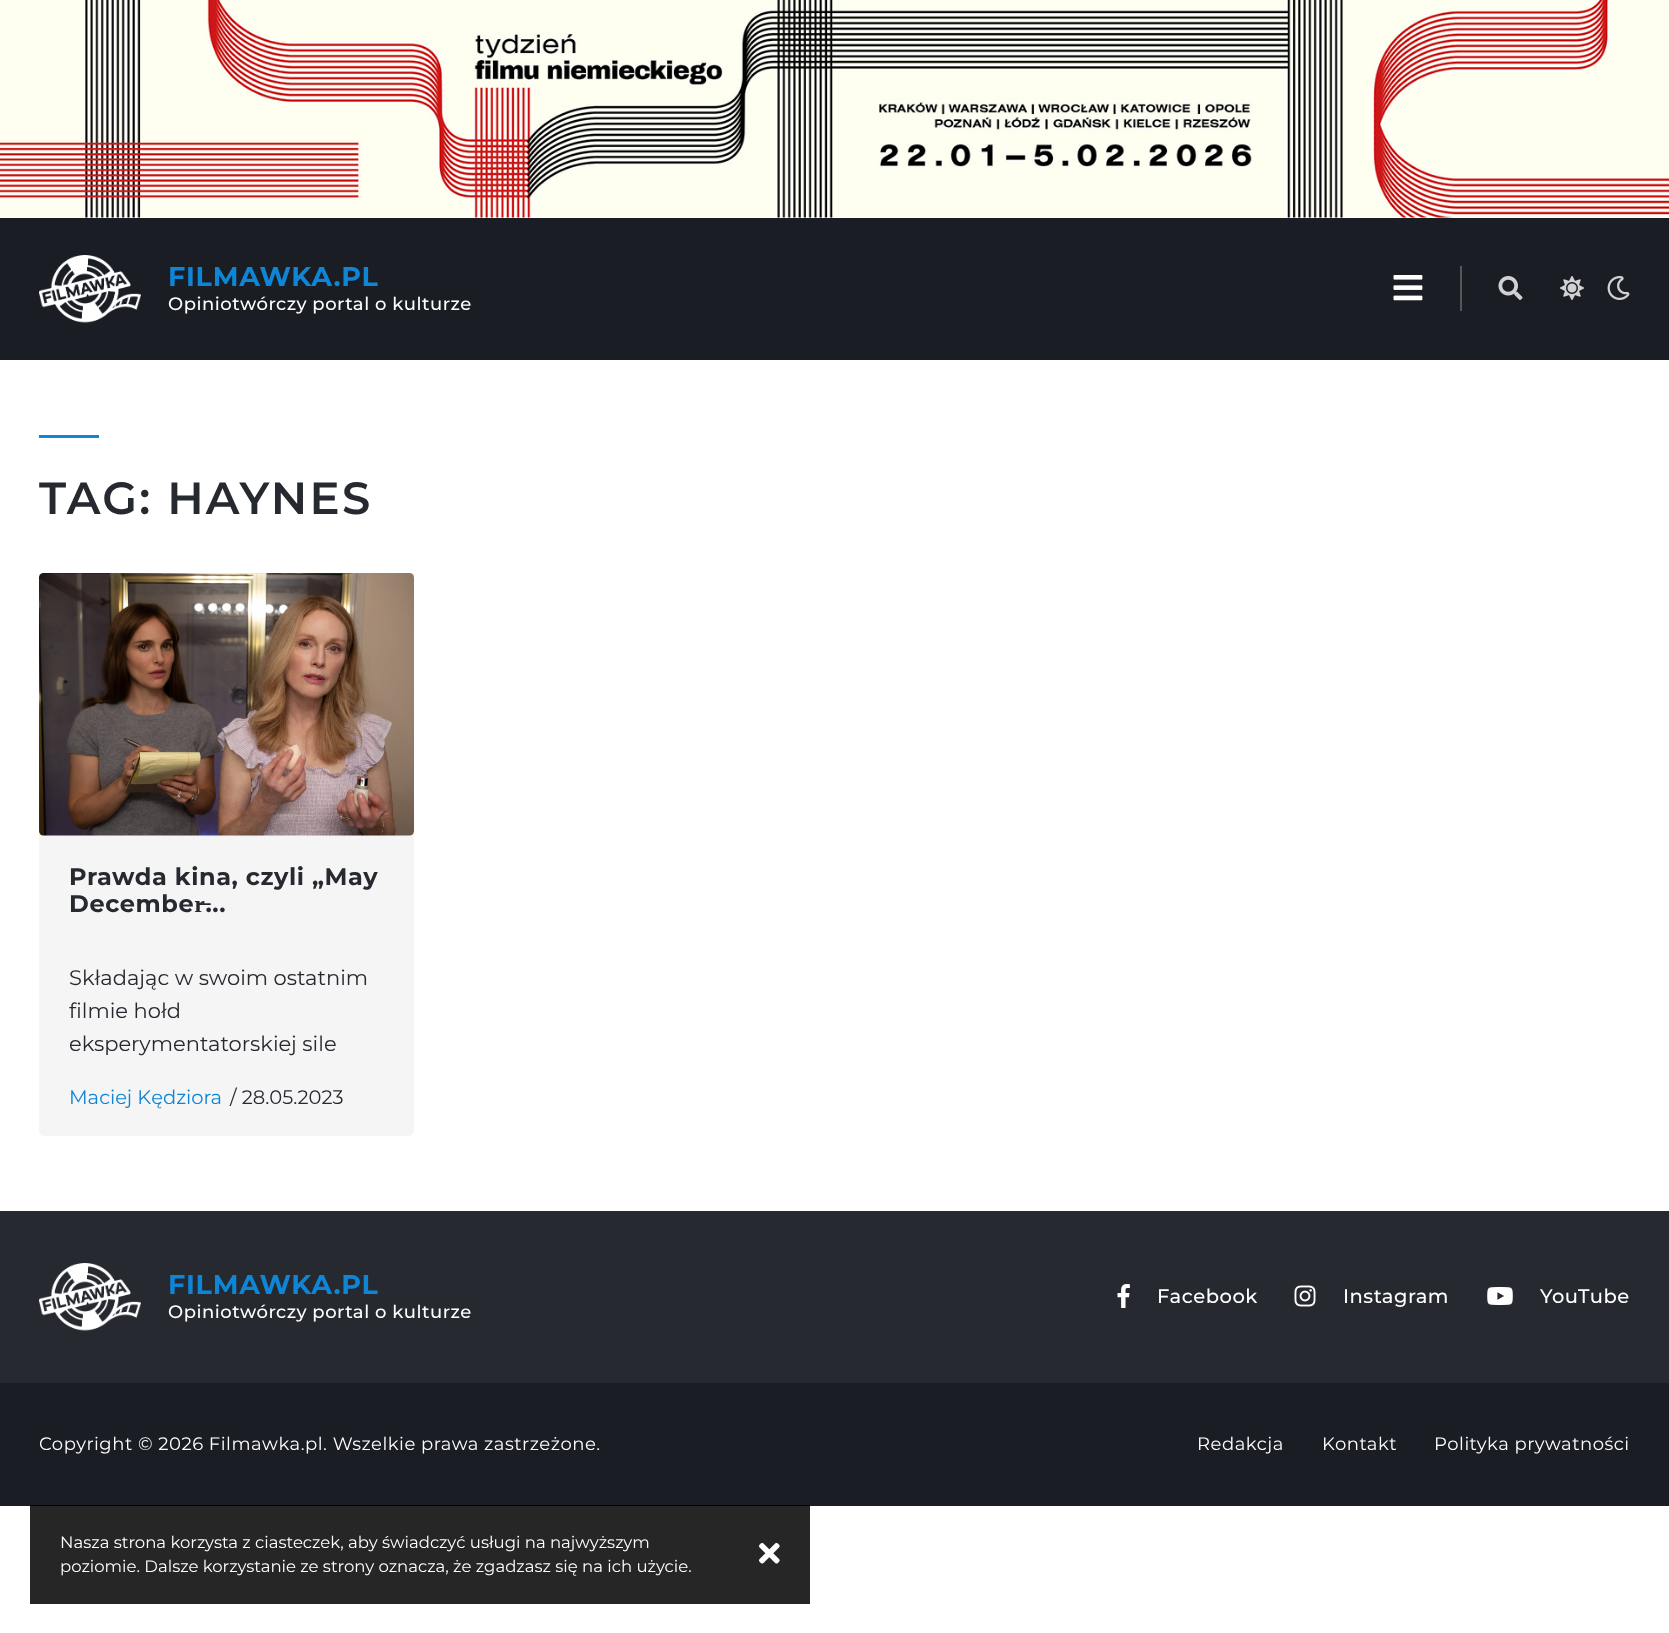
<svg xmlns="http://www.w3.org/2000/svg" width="1669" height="1633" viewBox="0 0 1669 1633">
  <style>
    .t1 { font: bold 27px Montserrat; letter-spacing: 0.75px; fill: #0f85d5; }
    .t2 { font: 500 18px Montserrat; letter-spacing: 0.52px; fill: #fff; }
    .t3 { font: 600 45px Montserrat; letter-spacing: 2.25px; fill: #26292f; }
    .t4 { font: bold 24px Montserrat; letter-spacing: 0.6px; fill: #26292f; }
    .t5 { font: 21px Montserrat; fill: #26292f; }
    .t6 { font: 19.5px Montserrat; fill: #0f85d5; }
    .t7 { font: 19.5px Montserrat; fill: #26292f; }
    .t8 { font: 500 19.5px Montserrat; letter-spacing: 0.52px; fill: #fff; }
    .t9 { font: 18px Montserrat; letter-spacing: 0.52px; fill: #fff; }
    .t10 { font: 16.5px Montserrat; fill: #fff; }
  </style>
  <rect width="100%" height="100%" fill="#fff"/>
  <rect x="30" y="1506" width="780" height="98" fill="#262626"/>
  <image x="0" y="0" width="1669" height="218" href="images/1.png"/>
  <rect x="0" y="218" width="1669" height="142" fill="#1a1d24"/>
  <image x="39" y="255" width="102" height="68" href="images/2.png"/>
  <text x="168" y="286" class="t1">FILMAWKA.PL</text>
  <text x="168" y="310" class="t2">Opiniotwórczy portal o kulturze</text>
  <image x="1393" y="275" width="30" height="26" href="images/3.png"/>
  <rect x="1460" y="266" width="2" height="45" fill="#53565b"/>
  <image x="1498" y="276" width="25" height="24" href="images/4.png"/>
  <image x="1560" y="276" width="24" height="24" href="images/5.png"/>
  <image x="1607" y="276" width="23" height="24" href="images/6.png"/>
  <rect x="39" y="435" width="60" height="3" fill="#0f85d5"/>
  <text x="39" y="514" class="t3">TAG: HAYNES</text>
  <rect x="39" y="573" width="375" height="563" rx="5" fill="#f5f5f5"/>
  <image x="38" y="573" width="376" height="263" href="images/7.png"/>
  <text x="69" y="885" class="t4">Prawda kina, czyli „May</text>
  <text x="69" y="912" class="t4">December̶...</text>
  <text x="69" y="985" class="t5">Składając w swoim ostatnim</text>
  <text x="69" y="1018" class="t5">filmie hołd</text>
  <text x="69" y="1051" class="t5">eksperymentatorskiej sile</text>
  <text x="69" y="1104" class="t6">Maciej Kędziora</text>
  <text x="230" y="1104" class="t7">/ 28.05.2023</text>
  <rect x="0" y="1211" width="1669" height="172" fill="#26292f"/>
  <image x="39" y="1263" width="102" height="68" href="images/8.png"/>
  <text x="168" y="1294" class="t1">FILMAWKA.PL</text>
  <text x="168" y="1318" class="t2">Opiniotwórczy portal o kulturze</text>
  <image x="1117" y="1284" width="13" height="24" href="images/9.png"/>
  <text x="1157" y="1303" class="t8">Facebook</text>
  <image x="1294" y="1285" width="22" height="22" href="images/10.png"/>
  <text x="1343" y="1303" class="t8">Instagram</text>
  <image x="1487" y="1287" width="26" height="18" href="images/11.png"/>
  <text x="1540" y="1303" class="t8">YouTube</text>
  <rect x="0" y="1383" width="1669" height="123" fill="#1a1d24"/>
  <rect x="30" y="1505" width="780" height="1" fill="#040405"/>
  <text x="39" y="1450" class="t9">Copyright © 2026 Filmawka.pl. Wszelkie prawa zastrzeżone.</text>
  <text x="1197" y="1450" class="t9">Redakcja</text>
  <text x="1322" y="1450" class="t9">Kontakt</text>
  <text x="1434" y="1450" class="t9">Polityka prywatności</text>
  <text x="60" y="1548" class="t10">Nasza strona korzysta z ciasteczek, aby świadczyć usługi na najwyższym</text>
  <text x="60" y="1572" class="t10">poziomie. Dalsze korzystanie ze strony oznacza, że zgadzasz się na ich użycie.</text>
  <image x="759" y="1542" width="21" height="22" href="images/12.png"/>
</svg>
